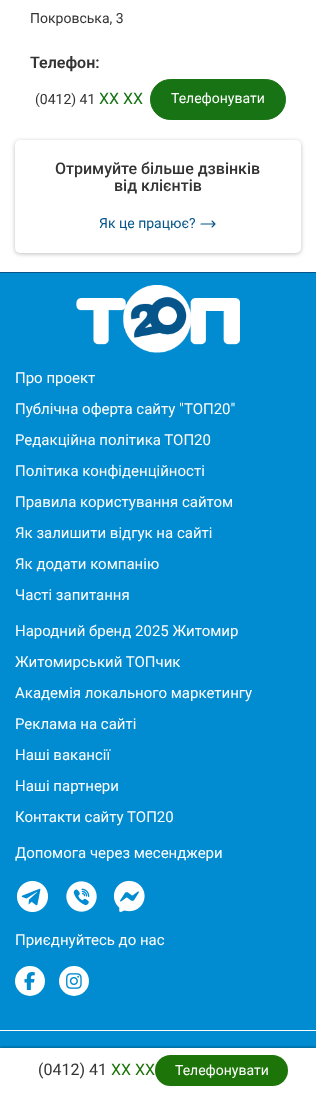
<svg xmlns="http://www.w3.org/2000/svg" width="316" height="1093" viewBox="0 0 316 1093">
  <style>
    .t1 { font: 14px Roboto; fill: #333; }
    .t2 { font: 600 16px Roboto; fill: #333; }
    .t3 { font: 16px Roboto; fill: #177313; }
    .t4 { font: 14px Roboto; fill: #fff; }
    .t5 { font: 500 16px Roboto; fill: #333; }
    .t6 { font: 14px Roboto; fill: #05558a; }
    .t7 { font: 16px Roboto; fill: #333; }
    .t8 { font: 16px Roboto; fill: #1d7509; }
    .t9 { font: 15px Roboto; fill: #fff; }
  </style>
  <rect width="100%" height="100%" fill="#fff"/>
  <text x="30" y="23" class="t1">Покровська, 3</text>
  <text x="30" y="68" class="t2">Телефон:</text>
  <text x="35" y="104" class="t1">(0412) 41</text>
  <text x="99" y="104" class="t3">XX XX</text>
  <rect x="150.5" y="79.5" width="135" height="40" rx="20" fill="#177313" stroke="#177313"/>
  <text x="171" y="103" class="t4">Телефонувати</text>
  <rect x="15" y="141" width="286" height="113" rx="5" fill="#00000040" filter="blur(2px)"/>
  <rect x="15" y="140" width="286" height="113" rx="5" fill="#fff"/>
  <text x="55" y="174" class="t5">Отримуйте більше дзвінків</text>
  <text x="114" y="191" class="t5">від клієнтів</text>
  <text x="99" y="228" class="t6">Як це працює?</text>
  <path d="M212 221L215 224M215 224L212 227M215 224H201" fill="none" stroke="#05558a" stroke-width="1.1" stroke-linecap="round" stroke-linejoin="round"/>
  <rect x="0" y="273" width="316" height="775" fill="#018bd0"/>
  <rect x="0" y="1047" width="316" height="45" fill="#0000004d" filter="blur(1px)"/>
  <rect x="0" y="1048" width="316" height="45" fill="#fff"/>
  <text x="38" y="1075" class="t7">(0412) 41</text>
  <text x="111" y="1075" class="t8">XX XX</text>
  <rect x="155" y="1055" width="133" height="31" rx="15.5" fill="#1d7509"/>
  <text x="175" y="1075" class="t4">Телефонувати</text>
  <rect x="0" y="272" width="316" height="1" fill="#05558a"/>
  <image x="76" y="285" width="164" height="68" href="images/1.png"/>
  <text x="15" y="383" class="t9">Про проект</text>
  <text x="15" y="414" class="t9">Публічна оферта сайту "ТОП20"</text>
  <text x="15" y="445" class="t9">Редакційна політика ТОП20</text>
  <text x="15" y="476" class="t9">Політика конфіденційності</text>
  <text x="15" y="507" class="t9">Правила користування сайтом</text>
  <text x="15" y="538" class="t9">Як залишити відгук на сайті</text>
  <text x="15" y="569" class="t9">Як додати компанію</text>
  <text x="15" y="600" class="t9">Часті запитання</text>
  <text x="15" y="636" class="t9">Народний бренд 2025 Житомир</text>
  <text x="15" y="667" class="t9">Житомирський ТОПчик</text>
  <text x="15" y="698" class="t9">Академія локального маркетингу</text>
  <text x="15" y="729" class="t9">Реклама на сайті</text>
  <text x="15" y="760" class="t9">Наші вакансії</text>
  <text x="15" y="791" class="t9">Наші партнери</text>
  <text x="15" y="822" class="t9">Контакти сайту ТОП20</text>
  <text x="15" y="858" class="t9">Допомога через месенджери</text>
  <image x="16" y="880" width="33" height="32" href="images/2.png"/>
  <image x="66" y="881" width="31" height="31" href="images/3.png"/>
  <image x="113" y="880" width="32" height="32" href="images/4.png"/>
  <text x="15" y="945" class="t9">Приєднуйтесь до нас</text>
  <circle cx="30" cy="981" r="15" fill="#fff"/>
  <image x="24" y="972" width="11" height="18" href="images/5.png"/>
  <circle cx="74" cy="981" r="15" fill="#fff"/>
  <image x="66" y="973" width="16" height="16" href="images/6.png"/>
  <rect x="0" y="1030" width="316" height="1" fill="#fff"/>
</svg>
